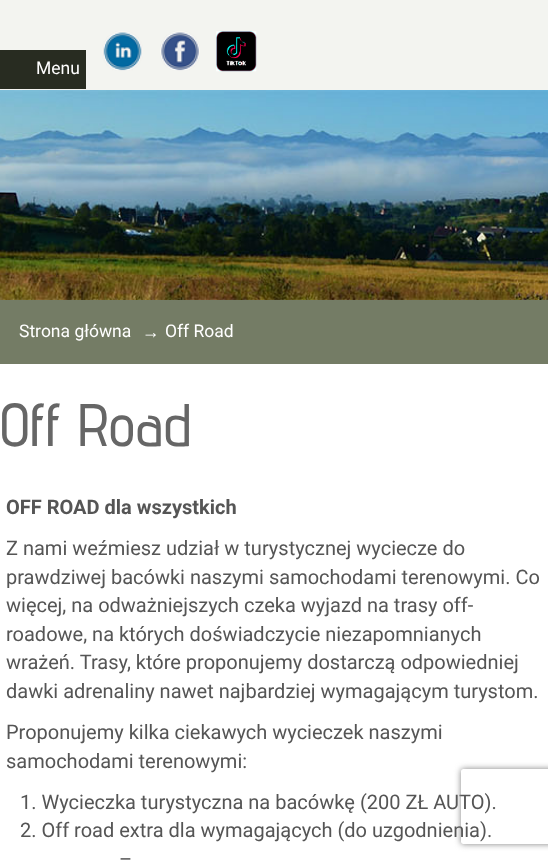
<svg xmlns="http://www.w3.org/2000/svg" width="548" height="861" viewBox="0 0 548 861">
  <style>
    .t1 { font: 17.5px Roboto; fill: #fff; }
    .t2 { font: 17.5px Liberation Serif; fill: #fff; }
    .t3 { font: 500 60px Advent Pro; fill: #666; }
    .t4 { font: bold 20px Roboto; fill: #555; }
    .t5 { font: 20px Roboto; fill: #555; }
  </style>
  <defs>
    <clipPath id="clip1"><path d="M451 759H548V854H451ZM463.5 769H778.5C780 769 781 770 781 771.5V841.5C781 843 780 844 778.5 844H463.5C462 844 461 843 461 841.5V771.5C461 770 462 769 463.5 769Z" clip-rule="evenodd"/></clipPath>
  </defs>
  <rect width="100%" height="100%" fill="#fff"/>
  <rect x="0" y="0" width="548" height="90" fill="#f3f4f0"/>
  <rect x="0" y="50" width="86" height="39" fill="#282c21"/>
  <text x="36" y="74" class="t1">Menu</text>
  <image x="102" y="31" width="41" height="40" href="images/1.png"/>
  <image x="160" y="31" width="40" height="40" href="images/2.png"/>
  <image x="216" y="31" width="41" height="41" href="images/3.png"/>
  <image x="0" y="90" width="548" height="210" href="images/4.png"/>
  <rect x="0" y="300" width="548" height="64" fill="#747c65"/>
  <text x="19" y="337" class="t1">Strona główna</text>
  <text x="142" y="338" class="t2">→</text>
  <text x="165" y="337" class="t1">Off Road</text>
  <text x="0" y="446" class="t3">Off Road</text>
  <text x="6" y="514" class="t4">OFF ROAD dla wszystkich</text>
  <text x="6" y="555" class="t5">Z nami weźmiesz udział w turystycznej wyciecze do</text>
  <text x="6" y="584" class="t5">prawdziwej bacówki naszymi samochodami terenowymi. Co</text>
  <text x="6" y="612" class="t5">więcej, na odważniejszych czeka wyjazd na trasy off-</text>
  <text x="6" y="641" class="t5">roadowe, na których doświadczycie niezapomnianych</text>
  <text x="6" y="669" class="t5">wrażeń. Trasy, które proponujemy dostarczą odpowiedniej</text>
  <text x="6" y="698" class="t5">dawki adrenaliny nawet najbardziej wymagającym turystom.</text>
  <text x="6" y="739" class="t5">Proponujemy kilka ciekawych wycieczek naszymi</text>
  <text x="6" y="768" class="t5">samochodami terenowymi:</text>
  <text x="20" y="809" class="t5">1. Wycieczka turystyczna na bacówkę (200 ZŁ AUTO).</text>
  <text x="20" y="837" class="t5">2. Off road extra dla wymagających (do uzgodnienia).</text>
  <text x="119" y="866" class="t5">–</text>
  <g clip-path="url(#clip1)">
    <rect x="461" y="769" width="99" height="75" rx="2.5" fill="#808080" filter="blur(3px)"/>
  </g>
</svg>
